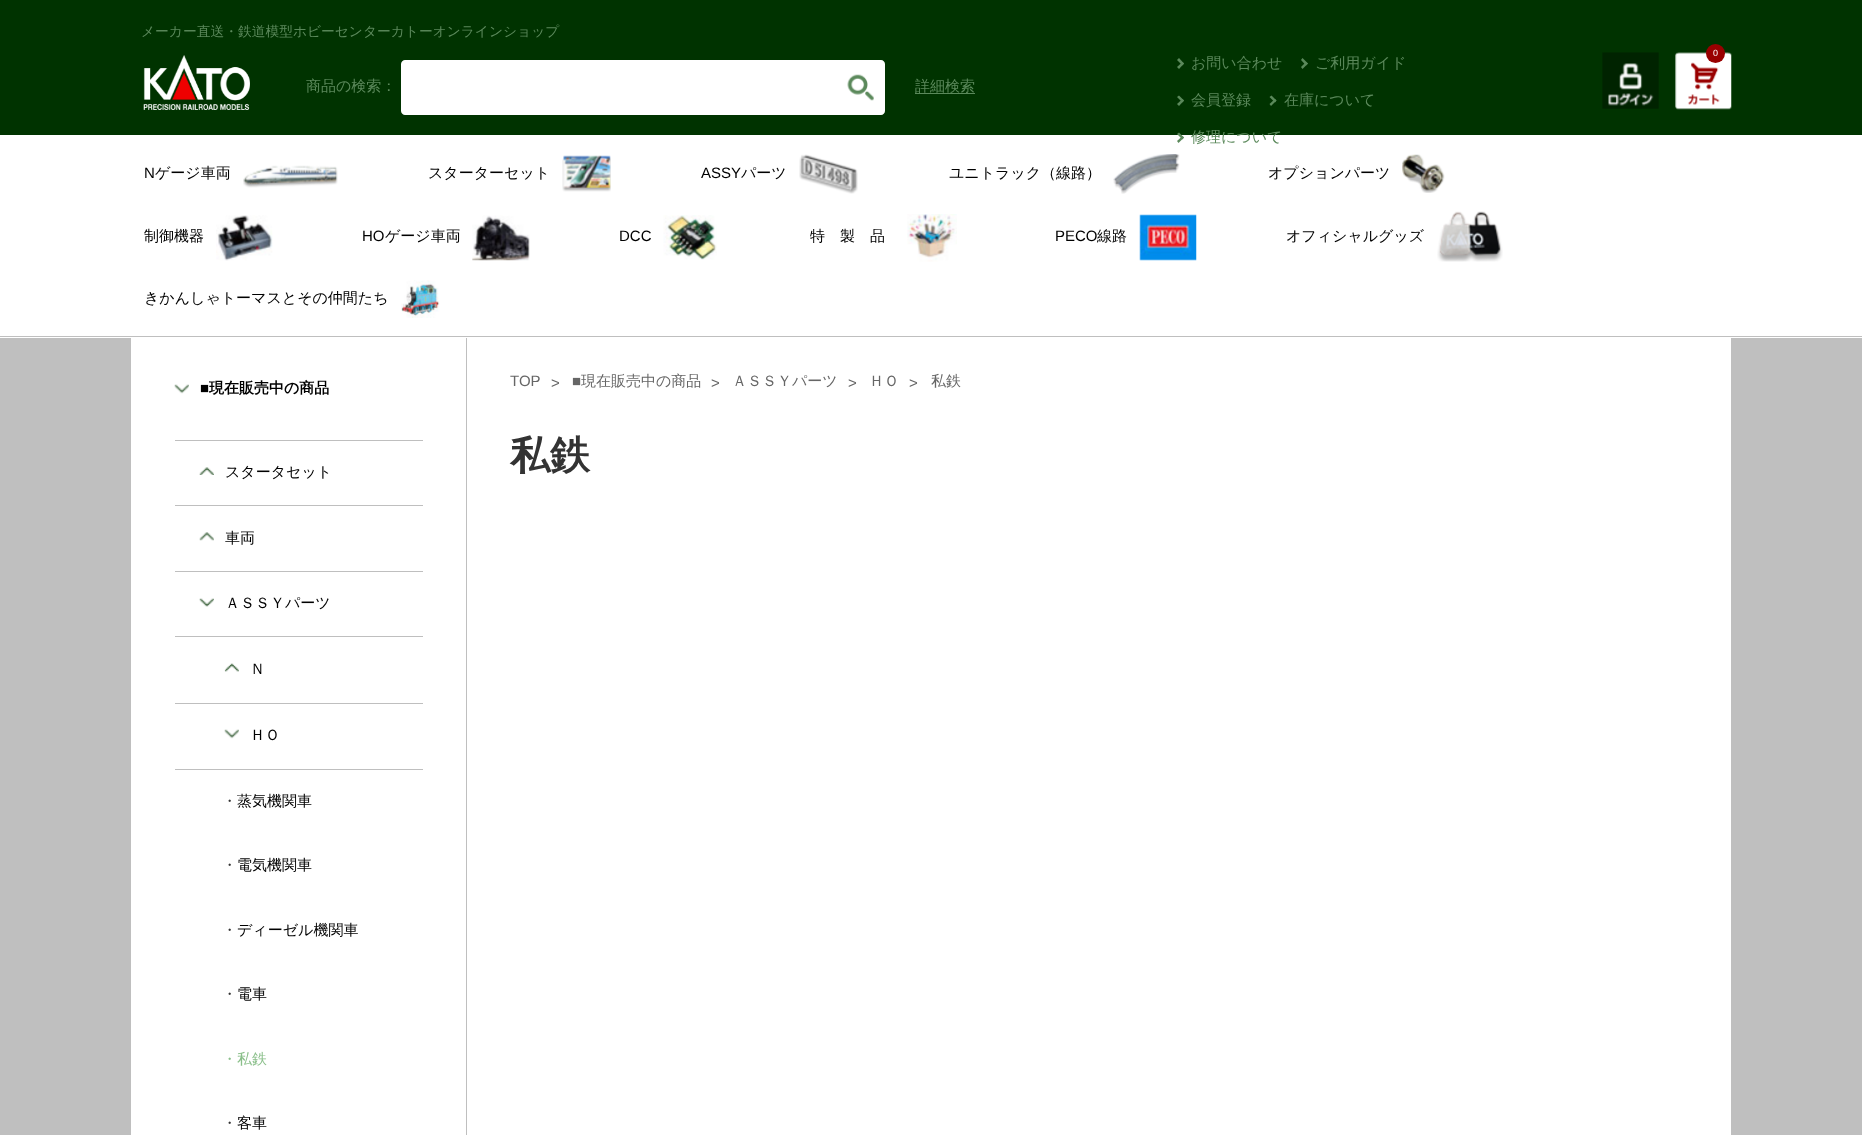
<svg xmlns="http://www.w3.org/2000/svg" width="1862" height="1135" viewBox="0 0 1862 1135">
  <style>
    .t1 { font: 500 13.75px WenQuanYi Zen Hei; fill: #5b895b; }
    .t2 { font: 9px Liberation Sans; fill: #fff; }
    .t3 { font: 500 15px WenQuanYi Zen Hei; fill: #5b895b; }
    .t4 { font: 15px Liberation Sans; fill: #000; }
    .t5 { font: 500 15px WenQuanYi Zen Hei; fill: #000; }
    .t6 { font: bold 15px Liberation Sans; fill: #000; }
    .t7 { font: bold 15px WenQuanYi Zen Hei; fill: #000; }
    .t8 { font: 500 15px WenQuanYi Zen Hei; fill: #333; }
    .t9 { font: 500 15px WenQuanYi Zen Hei; fill: #8abf8a; }
    .t10 { font: 15px Liberation Sans; fill: #666; }
    .t11 { font: 500 15px WenQuanYi Zen Hei; fill: #666; }
    .t12 { font: bold 40px WenQuanYi Zen Hei; fill: #333; }
  </style>
  <rect width="100%" height="100%" fill="#fff"/>
  <rect x="0" y="0" width="1862" height="135" fill="#030"/>
  <text x="141" y="36" class="t1">メーカー直送・鉄道模型ホビーセンターカトーオンラインショップ</text>
  <image x="1602" y="52" width="57" height="57" href="images/1.png"/>
  <image x="1675" y="52" width="57" height="58" href="images/2.png"/>
  <circle cx="1715.5" cy="53.5" r="9.5" fill="#900"/>
  <text x="1713" y="56" class="t2">0</text>
  <image x="143" y="55" width="107" height="55" href="images/3.png"/>
  <text x="306" y="91" class="t3">商品の検索：</text>
  <path d="M405 60H835V115H405C403 115 401 113 401 111V64C401 62 403 60 405 60Z" fill="#fff"/>
  <path d="M835 60H881C883 60 885 62 885 64V111C885 113 883 115 881 115H835Z" fill="#fff"/>
  <image x="847" y="74" width="27" height="27" href="images/4.png"/>
  <rect x="915" y="93" width="60" height="1" fill="#5b895b"/>
  <text x="915" y="91" class="t3">詳細検索</text>
  <path d="M1179 58L1184 63.5L1182.5 65.5L1177 60Z" fill="#5b895b"/>
  <path d="M1182.5 62L1184 63.5L1179 69L1177 67Z" fill="#5b895b"/>
  <text x="1191" y="68" class="t3">お問い合わせ</text>
  <path d="M1302.5 58L1308 63.5L1306 65.5L1301 60Z" fill="#5b895b"/>
  <path d="M1306 62L1308 63.5L1302.5 69L1301 67Z" fill="#5b895b"/>
  <text x="1315" y="68" class="t3">ご利用ガイド</text>
  <path d="M1179 95.5L1184 100.5L1182.5 102.5L1177 97Z" fill="#5b895b"/>
  <path d="M1182.5 99L1184 100.5L1179 106L1177 104Z" fill="#5b895b"/>
  <text x="1191" y="105" class="t3">会員登録</text>
  <path d="M1271.5 95.5L1276.5 100.5L1275 102.5L1269.5 97Z" fill="#5b895b"/>
  <path d="M1275 99L1276.5 100.5L1271 106L1269.5 104Z" fill="#5b895b"/>
  <text x="1284" y="105" class="t3">在庫について</text>
  <path d="M1179 132.5L1184 137.5L1182.5 139.5L1177 134Z" fill="#5b895b"/>
  <path d="M1182.5 136L1184 137.5L1178.5 143L1177 141Z" fill="#5b895b"/>
  <text x="1191" y="142" class="t3">修理について</text>
  <rect x="0" y="336" width="1862" height="1" fill="#bfbfbf"/>
  <text x="144" y="178" class="t4">N</text>
  <text x="155" y="178" class="t5">ゲージ車両</text>
  <image x="243" y="165" width="95" height="23" href="images/5.png"/>
  <text x="428" y="178" class="t5">スターターセット</text>
  <image x="562" y="155" width="49" height="37" href="images/6.png"/>
  <text x="701" y="178" class="t4">ASSY</text>
  <text x="741" y="178" class="t5">パーツ</text>
  <image x="799" y="154" width="59" height="40" href="images/7.png"/>
  <text x="949" y="178" class="t5">ユニトラック（線路）</text>
  <image x="1113" y="154" width="67" height="40" href="images/8.png"/>
  <text x="1268" y="178" class="t5">オプションパーツ</text>
  <image x="1402" y="154" width="43" height="39" href="images/9.png"/>
  <text x="144" y="241" class="t5">制御機器</text>
  <image x="216" y="215" width="57" height="46" href="images/10.png"/>
  <text x="362" y="241" class="t4">HO</text>
  <text x="385" y="241" class="t5">ゲージ車両</text>
  <image x="472" y="215" width="58" height="46" href="images/11.png"/>
  <text x="619" y="241" class="t4">DCC</text>
  <image x="663" y="215" width="54" height="45" href="images/12.png"/>
  <text x="810" y="241" class="t5">特　製　品</text>
  <image x="907" y="214" width="50" height="48" href="images/13.png"/>
  <text x="1055" y="241" class="t4">PECO</text>
  <text x="1097" y="241" class="t5">線路</text>
  <image x="1139" y="214" width="58" height="47" href="images/14.png"/>
  <text x="1286" y="241" class="t5">オフィシャルグッズ</text>
  <image x="1437" y="211" width="66" height="51" href="images/15.png"/>
  <text x="144" y="303" class="t5">きかんしゃトーマスとその仲間たち</text>
  <image x="401" y="280" width="39" height="38" href="images/16.png"/>
  <rect x="0" y="338" width="1862" height="797" fill="#bfbfbf"/>
  <rect x="131" y="338" width="1600" height="797" fill="#fff"/>
  <image x="174" y="384" width="15" height="10" href="images/17.png"/>
  <rect x="175" y="440" width="248" height="1" fill="#bfbfbf"/>
  <text x="200" y="393" class="t6">■</text>
  <text x="209" y="393" class="t7">現在販売中の商品</text>
  <image x="199" y="467" width="15" height="8" href="images/18.png"/>
  <rect x="175" y="505" width="248" height="1" fill="#bfbfbf"/>
  <text x="225" y="477" class="t5">スタータセット</text>
  <image x="199" y="532" width="15" height="9" href="images/19.png"/>
  <rect x="175" y="571" width="248" height="1" fill="#bfbfbf"/>
  <text x="225" y="543" class="t5">車両</text>
  <image x="199" y="598" width="15" height="9" href="images/20.png"/>
  <text x="225" y="608" class="t5">ＡＳＳＹパーツ</text>
  <image x="224" y="663" width="15" height="9" href="images/21.png"/>
  <rect x="175" y="636" width="248" height="1" fill="#bfbfbf"/>
  <rect x="175" y="703" width="248" height="1" fill="#bfbfbf"/>
  <text x="250" y="674" class="t5">Ｎ</text>
  <image x="224" y="729" width="15" height="10" href="images/17.png"/>
  <text x="250" y="740" class="t5">ＨＯ</text>
  <rect x="175" y="769" width="248" height="1" fill="#bfbfbf"/>
  <text x="222" y="806" class="t8">・</text>
  <text x="237" y="806" class="t5">蒸気機関車</text>
  <text x="222" y="870" class="t8">・</text>
  <text x="237" y="870" class="t5">電気機関車</text>
  <text x="222" y="935" class="t8">・</text>
  <text x="237" y="935" class="t5">ディーゼル機関車</text>
  <text x="222" y="999" class="t8">・</text>
  <text x="237" y="999" class="t5">電車</text>
  <text x="222" y="1064" class="t9">・私鉄</text>
  <text x="222" y="1128" class="t8">・</text>
  <text x="237" y="1128" class="t5">客車</text>
  <rect x="466" y="338" width="1" height="797" fill="#bfbfbf"/>
  <text x="510" y="386" class="t10">TOP</text>
  <text x="551" y="388" class="t10">&gt;</text>
  <text x="572" y="386" class="t10">■</text>
  <text x="581" y="386" class="t11">現在販売中の商品</text>
  <text x="711" y="388" class="t10">&gt;</text>
  <text x="732" y="386" class="t11">ＡＳＳＹパーツ</text>
  <text x="848" y="388" class="t10">&gt;</text>
  <text x="869" y="386" class="t11">ＨＯ</text>
  <text x="909" y="388" class="t10">&gt;</text>
  <text x="931" y="386" class="t11">私鉄</text>
  <text x="510" y="469" class="t12">私鉄</text>
</svg>
